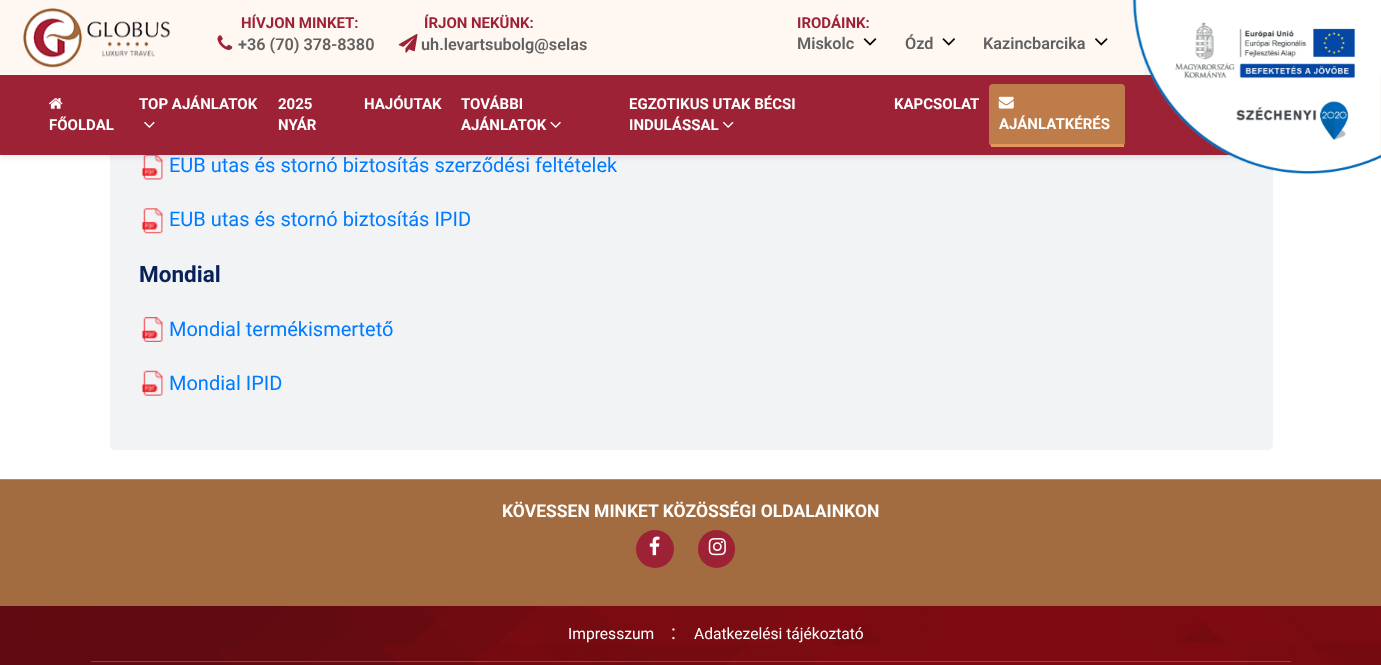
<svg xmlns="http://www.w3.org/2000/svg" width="1381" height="665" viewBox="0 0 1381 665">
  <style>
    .t1 { font: bold 15px Roboto; fill: #9d2235; }
    .t2 { font: 600 16.25px Roboto; fill: #616161; }
    .t3 { font: bold 15px Roboto; fill: #fff; }
    .t4 { font: 20px Roboto; fill: #007bff; }
    .t5 { font: bold 22.5px Roboto; fill: #082158; }
    .t6 { font: bold 17.5px Roboto; fill: #fff; }
    .t7 { font: 15.6px Roboto; fill: #fff; }
    .t8 { font: 20px Roboto; fill: #f5f5f5; }
  </style>
  <rect width="100%" height="100%" fill="#fff"/>
  <rect x="110" y="-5" width="1163" height="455" rx="5" fill="#f2f3f5"/>
  <rect x="0" y="0" width="1144" height="75" fill="#fef7f2"/>
  <image x="23" y="8" width="148" height="60" href="images/1.png"/>
  <text x="241" y="28" class="t1">HÍVJON MINKET:</text>
  <image x="217" y="35" width="16" height="15" href="images/2.png"/>
  <text x="238" y="50" class="t2">+36 (70) 378-8380</text>
  <text x="424" y="28" class="t1">ÍRJON NEKÜNK:</text>
  <image x="398" y="34" width="20" height="19" href="images/3.png"/>
  <text x="421" y="50" class="t2">uh.levartsubolg@selas</text>
  <text x="797" y="28" class="t1">IRODÁINK:</text>
  <text x="797" y="49" class="t2">Miskolc</text>
  <image x="863" y="38" width="14" height="8" href="images/4.png"/>
  <text x="905" y="49" class="t2">Ózd</text>
  <image x="942" y="38" width="13" height="8" href="images/5.png"/>
  <text x="983" y="49" class="t2">Kazincbarcika</text>
  <image x="1095" y="38" width="13" height="8" href="images/6.png"/>
  <image x="142" y="155" width="21" height="25" href="images/13.png"/>
  <rect x="0" y="78" width="1381" height="80" fill="#00000012" filter="blur(2.5px)"/>
  <rect x="0" y="75" width="1381" height="80" fill="#9d2235"/>
  <text x="139" y="109" class="t3">TOP AJÁNLATOK</text>
  <image x="144" y="121" width="11" height="7" href="images/7.png"/>
  <text x="278" y="109" class="t3">2025</text>
  <text x="278" y="130" class="t3">NYÁR</text>
  <text x="364" y="109" class="t3">HAJÓUTAK</text>
  <text x="461" y="109" class="t3">TOVÁBBI</text>
  <text x="461" y="130" class="t3">AJÁNLATOK</text>
  <image x="550" y="121" width="11" height="7" href="images/8.png"/>
  <text x="629" y="109" class="t3">EGZOTIKUS UTAK BÉCSI</text>
  <text x="629" y="130" class="t3">INDULÁSSAL</text>
  <image x="722" y="121" width="12" height="7" href="images/9.png"/>
  <text x="894" y="109" class="t3">KAPCSOLAT</text>
  <image x="49" y="98" width="14" height="11" href="images/10.png"/>
  <text x="49" y="130" class="t3">FŐOLDAL</text>
  <rect x="989" y="84" width="136" height="62" rx="4" fill="#be7c4a"/>
  <rect x="991" y="144" width="133" height="3" fill="#e6975c"/>
  <image x="998" y="96" width="16" height="13" href="images/11.png"/>
  <text x="999" y="129" class="t3">AJÁNLATKÉRÉS</text>
  <image x="1132" y="0" width="249" height="175" href="images/12.png"/>
  <text x="169" y="172" class="t4">EUB utas és stornó biztosítás szerződési feltételek</text>
  <image x="142" y="208" width="21" height="26" href="images/14.png"/>
  <text x="169" y="226" class="t4">EUB utas és stornó biztosítás IPID</text>
  <text x="139" y="282" class="t5">Mondial</text>
  <image x="142" y="317" width="21" height="25" href="images/15.png"/>
  <text x="169" y="336" class="t4">Mondial termékismertető</text>
  <image x="142" y="370" width="21" height="26" href="images/16.png"/>
  <text x="169" y="390" class="t4">Mondial IPID</text>
  <image x="0" y="479" width="1381" height="186" href="images/17.png"/>
  <rect x="0" y="480" width="1381" height="126" fill="#a26c40"/>
  <text x="502" y="517" class="t6">KÖVESSEN MINKET KÖZÖSSÉGI OLDALAINKON</text>
  <circle cx="655" cy="549" r="19" fill="#9d2235"/>
  <image x="649" y="536" width="11" height="20" href="images/18.png"/>
  <rect x="698" y="530" width="37" height="38" rx="18.5" fill="#9d2235"/>
  <image x="708" y="538" width="18" height="18" href="images/19.png"/>
  <rect x="91" y="661" width="1200" height="1" fill="#ffffff3b"/>
  <text x="568" y="639" class="t7">Impresszum</text>
  <text x="671" y="639" class="t8">:</text>
  <text x="694" y="639" class="t7">Adatkezelési tájékoztató</text>
</svg>
